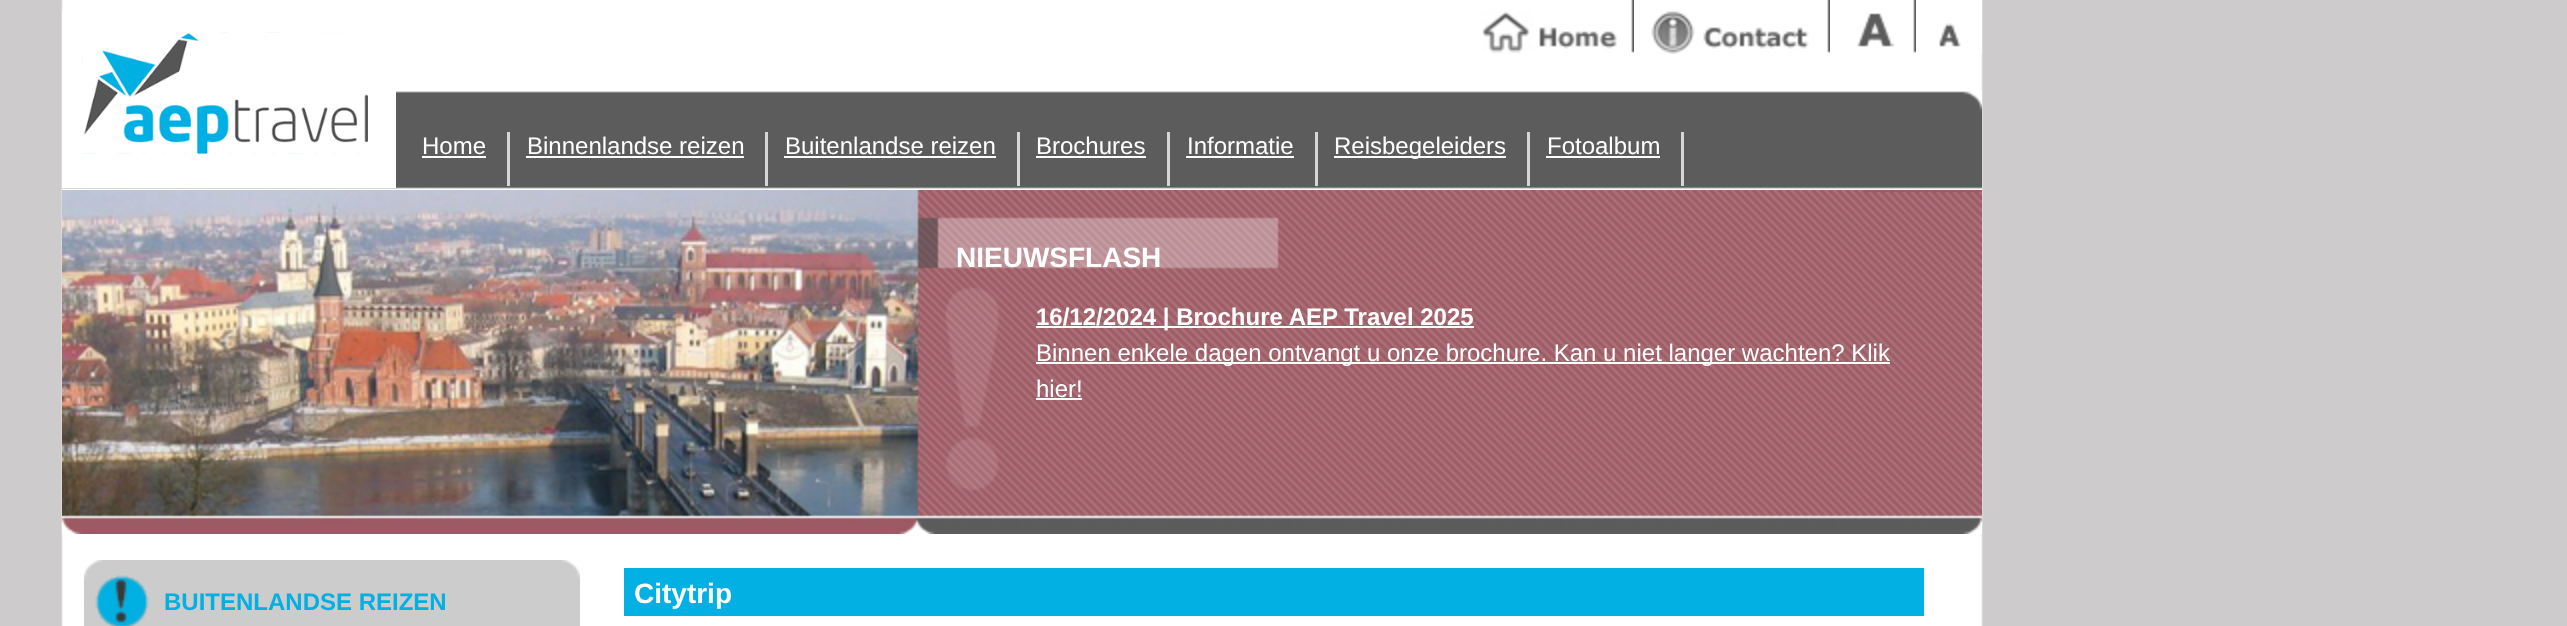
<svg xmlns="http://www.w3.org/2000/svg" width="2567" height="626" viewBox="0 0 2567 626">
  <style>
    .t1 { font: 24px Liberation Sans; fill: #fff; }
    .t2 { font: bold 28px Liberation Sans; fill: #fff; }
    .t3 { font: bold 24px Liberation Sans; fill: #fff; }
    .t4 { font: bold 24px Liberation Sans; fill: #03b0e3; }
  </style>
  <rect width="100%" height="100%" fill="#cdcbcb"/>
  <image x="61" y="0" width="1922" height="626" href="images/1.png"/>
  <image x="62" y="90" width="1920" height="100" href="images/3.png"/>
  <rect x="62" y="12" width="334" height="176" fill="#fff"/>
  <image x="82" y="32" width="286" height="122" href="images/2.png"/>
  <text x="422" y="154" class="t1">Home</text>
  <rect x="507" y="132" width="3" height="54" fill="#d6d6d6"/>
  <rect x="422" y="156" width="64" height="2" fill="#fff"/>
  <text x="527" y="154" class="t1">Binnenlandse reizen</text>
  <rect x="765" y="132" width="3" height="54" fill="#d6d6d6"/>
  <rect x="526" y="156" width="218" height="2" fill="#fff"/>
  <text x="785" y="154" class="t1">Buitenlandse reizen</text>
  <rect x="1017" y="132" width="3" height="54" fill="#d6d6d6"/>
  <rect x="784" y="156" width="212" height="2" fill="#fff"/>
  <text x="1036" y="154" class="t1">Brochures</text>
  <rect x="1167" y="132" width="3" height="54" fill="#d6d6d6"/>
  <rect x="1036" y="156" width="110" height="2" fill="#fff"/>
  <text x="1187" y="154" class="t1">Informatie</text>
  <rect x="1315" y="132" width="3" height="54" fill="#d6d6d6"/>
  <rect x="1186" y="156" width="108" height="2" fill="#fff"/>
  <rect x="1334" y="156" width="172" height="2" fill="#fff"/>
  <text x="1334" y="154" class="t1">Reisbegeleiders</text>
  <rect x="1527" y="132" width="3" height="54" fill="#d6d6d6"/>
  <text x="1547" y="154" class="t1">Fotoalbum</text>
  <rect x="1681" y="132" width="3" height="54" fill="#d6d6d6"/>
  <rect x="1546" y="156" width="114" height="2" fill="#fff"/>
  <image x="1481" y="0" width="153" height="54" href="images/4.png"/>
  <image x="1651" y="0" width="179" height="54" href="images/5.png"/>
  <image x="1857" y="0" width="59" height="53" href="images/6.png"/>
  <image x="1939" y="0" width="43" height="54" href="images/7.png"/>
  <image x="62" y="190" width="1920" height="344" href="images/8.png"/>
  <text x="956" y="267" class="t2">NIEUWSFLASH</text>
  <rect x="1036" y="326" width="438" height="2" fill="#fff"/>
  <text x="1036" y="325" class="t3">16/12/2024 | Brochure AEP Travel 2025</text>
  <rect x="1036" y="362" width="854" height="2" fill="#fff"/>
  <text x="1036" y="361" class="t1">Binnen enkele dagen ontvangt u onze brochure. Kan u niet langer wachten? Klik</text>
  <text x="1036" y="397" class="t1">hier!</text>
  <rect x="1036" y="398" width="46" height="2" fill="#fff"/>
  <image x="84" y="560" width="496" height="66" href="images/9.png"/>
  <text x="164" y="610" class="t4">BUITENLANDSE REIZEN</text>
  <rect x="624" y="568" width="1300" height="48" fill="#03b0e3"/>
  <text x="634" y="603" class="t2">Citytrip</text>
</svg>
